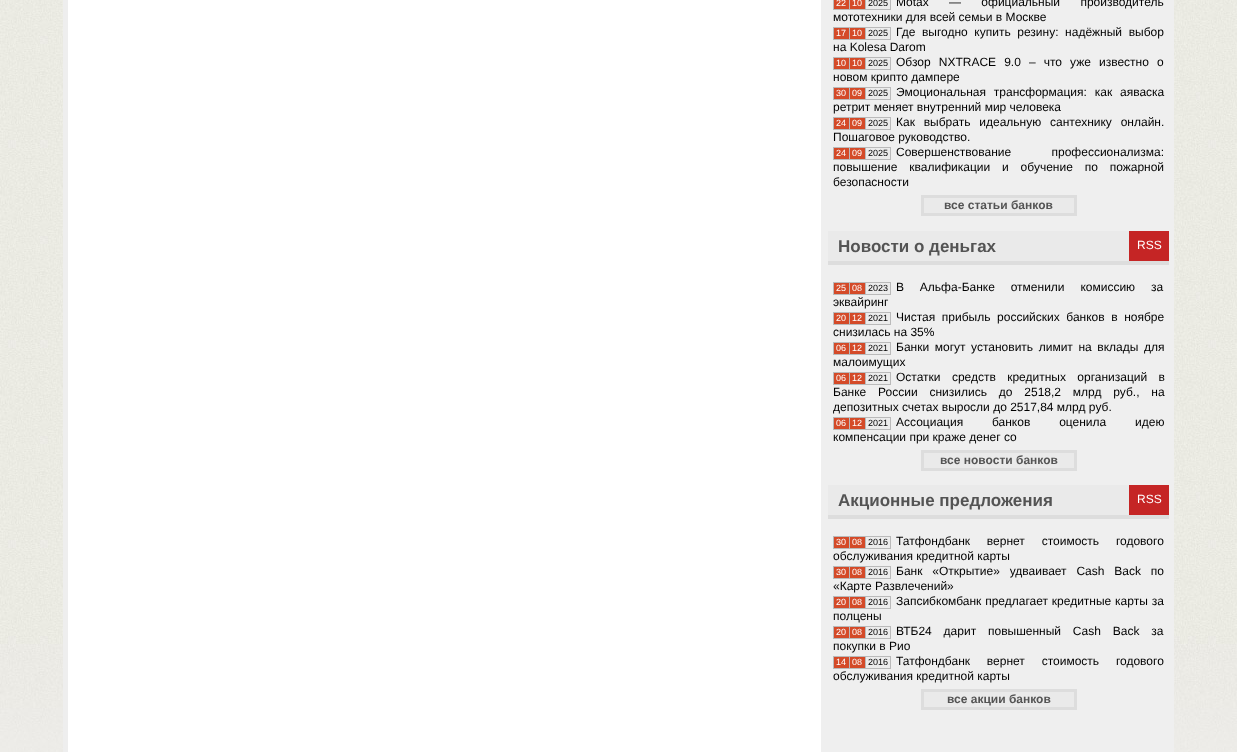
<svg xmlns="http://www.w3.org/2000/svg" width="1237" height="752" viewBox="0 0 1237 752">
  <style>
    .t1 { font: 9px Liberation Sans; fill: #fff; }
    .t2 { font: 9px Liberation Sans; fill: #000; }
    .t3 { font: 12px Liberation Sans; fill: #000; }
    .t4 { font: bold 12px Liberation Sans; fill: #545454; }
    .t5 { font: bold 17px Liberation Sans; fill: #545454; }
    .t6 { font: 12px Liberation Sans; fill: #fff; }
  </style>
  <rect width="100%" height="100%" fill="#fff"/>
  <image x="0" y="0" width="1237" height="752" href="images/1.png"/>
  <rect x="68" y="0" width="753" height="752" fill="#fff"/>
  <rect x="821" y="0" width="353" height="752" fill="#efefef"/>
  <rect x="63" y="0" width="5" height="752" fill="#eee"/>
  <rect x="833.5" y="-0.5" width="57" height="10" fill="none" stroke="#bababa"/>
  <rect x="834" y="0" width="15" height="9" fill="#d44a28"/>
  <rect x="849" y="0" width="1" height="9" fill="#bababa"/>
  <text x="836" y="6" class="t1">22</text>
  <rect x="850" y="0" width="15" height="9" fill="#d44a28"/>
  <rect x="865" y="0" width="1" height="9" fill="#bababa"/>
  <text x="852" y="6" class="t1">10</text>
  <rect x="866" y="0" width="24" height="9" fill="#ececec"/>
  <text x="868" y="6" class="t2">2025</text>
  <text x="896" y="6" word-spacing="17" class="t3">Motax — официальный производитель</text>
  <text x="833" y="21" class="t3">мототехники для всей семьи в Москве</text>
  <rect x="833.5" y="27.5" width="57" height="12" fill="none" stroke="#bababa"/>
  <rect x="834" y="28" width="15" height="11" fill="#d44a28"/>
  <rect x="849" y="28" width="1" height="11" fill="#bababa"/>
  <text x="836" y="36" class="t1">17</text>
  <rect x="850" y="28" width="15" height="11" fill="#d44a28"/>
  <rect x="865" y="28" width="1" height="11" fill="#bababa"/>
  <text x="852" y="36" class="t1">10</text>
  <rect x="866" y="28" width="24" height="11" fill="#ececec"/>
  <text x="868" y="36" class="t2">2025</text>
  <text x="896" y="36" word-spacing="3.25" class="t3">Где выгодно купить резину: надёжный выбор</text>
  <text x="833" y="51" class="t3">на Kolesa Darom</text>
  <rect x="833.5" y="57.5" width="57" height="12" fill="none" stroke="#bababa"/>
  <rect x="834" y="58" width="15" height="11" fill="#d44a28"/>
  <rect x="849" y="58" width="1" height="11" fill="#bababa"/>
  <text x="836" y="66" class="t1">10</text>
  <rect x="850" y="58" width="15" height="11" fill="#d44a28"/>
  <rect x="865" y="58" width="1" height="11" fill="#bababa"/>
  <text x="852" y="66" class="t1">10</text>
  <rect x="866" y="58" width="24" height="11" fill="#ececec"/>
  <text x="868" y="66" class="t2">2025</text>
  <text x="896" y="66" word-spacing="4.75" class="t3">Обзор NXTRACE 9.0 – что уже известно о</text>
  <text x="833" y="81" class="t3">новом крипто дампере</text>
  <rect x="833.5" y="87.5" width="57" height="12" fill="none" stroke="#bababa"/>
  <rect x="834" y="88" width="15" height="11" fill="#d44a28"/>
  <rect x="849" y="88" width="1" height="11" fill="#bababa"/>
  <text x="836" y="96" class="t1">30</text>
  <rect x="850" y="88" width="15" height="11" fill="#d44a28"/>
  <rect x="865" y="88" width="1" height="11" fill="#bababa"/>
  <text x="852" y="96" class="t1">09</text>
  <rect x="866" y="88" width="24" height="11" fill="#ececec"/>
  <text x="868" y="96" class="t2">2025</text>
  <text x="896" y="96" word-spacing="4.5" class="t3">Эмоциональная трансформация: как аяваска</text>
  <text x="833" y="111" class="t3">ретрит меняет внутренний мир человека</text>
  <rect x="833.5" y="117.5" width="57" height="12" fill="none" stroke="#bababa"/>
  <rect x="834" y="118" width="15" height="11" fill="#d44a28"/>
  <rect x="849" y="118" width="1" height="11" fill="#bababa"/>
  <text x="836" y="126" class="t1">24</text>
  <rect x="850" y="118" width="15" height="11" fill="#d44a28"/>
  <rect x="865" y="118" width="1" height="11" fill="#bababa"/>
  <text x="852" y="126" class="t1">09</text>
  <rect x="866" y="118" width="24" height="11" fill="#ececec"/>
  <text x="868" y="126" class="t2">2025</text>
  <text x="896" y="126" word-spacing="5.5" class="t3">Как выбрать идеальную сантехнику онлайн.</text>
  <text x="833" y="141" class="t3">Пошаговое руководство.</text>
  <rect x="833.5" y="147.5" width="57" height="12" fill="none" stroke="#bababa"/>
  <rect x="834" y="148" width="15" height="11" fill="#d44a28"/>
  <rect x="849" y="148" width="1" height="11" fill="#bababa"/>
  <text x="836" y="156" class="t1">24</text>
  <rect x="850" y="148" width="15" height="11" fill="#d44a28"/>
  <rect x="865" y="148" width="1" height="11" fill="#bababa"/>
  <text x="852" y="156" class="t1">09</text>
  <rect x="866" y="148" width="24" height="11" fill="#ececec"/>
  <text x="868" y="156" class="t2">2025</text>
  <text x="896" y="156" word-spacing="37" class="t3">Совершенствование профессионализма:</text>
  <text x="833" y="171" word-spacing="8.5" class="t3">повышение квалификации и обучение по пожарной</text>
  <text x="833" y="186" class="t3">безопасности</text>
  <rect x="922.5" y="196.5" width="153" height="18" fill="#eaeaea" stroke="#ddd" stroke-width="3"/>
  <text x="944" y="209" class="t4">все статьи банков</text>
  <rect x="828" y="231" width="301" height="30" fill="#eaeaea"/>
  <rect x="828" y="261" width="341" height="4" fill="#ddd"/>
  <text x="838" y="252" class="t5">Новости о деньгах</text>
  <rect x="1129" y="231" width="40" height="30" fill="#c52525"/>
  <text x="1137" y="249" class="t6">RSS</text>
  <rect x="833.5" y="282.5" width="57" height="12" fill="none" stroke="#bababa"/>
  <rect x="834" y="283" width="15" height="11" fill="#d44a28"/>
  <rect x="849" y="283" width="1" height="11" fill="#bababa"/>
  <text x="836" y="291" class="t1">25</text>
  <rect x="850" y="283" width="15" height="11" fill="#d44a28"/>
  <rect x="865" y="283" width="1" height="11" fill="#bababa"/>
  <text x="852" y="291" class="t1">08</text>
  <rect x="866" y="283" width="24" height="11" fill="#ececec"/>
  <text x="868" y="291" class="t2">2023</text>
  <text x="896" y="291" word-spacing="12.5" class="t3">В Альфа-Банке отменили комиссию за</text>
  <text x="833" y="306" class="t3">эквайринг</text>
  <rect x="833.5" y="312.5" width="57" height="12" fill="none" stroke="#bababa"/>
  <rect x="834" y="313" width="15" height="11" fill="#d44a28"/>
  <rect x="849" y="313" width="1" height="11" fill="#bababa"/>
  <text x="836" y="321" class="t1">20</text>
  <rect x="850" y="313" width="15" height="11" fill="#d44a28"/>
  <rect x="865" y="313" width="1" height="11" fill="#bababa"/>
  <text x="852" y="321" class="t1">12</text>
  <rect x="866" y="313" width="24" height="11" fill="#ececec"/>
  <text x="868" y="321" class="t2">2021</text>
  <text x="896" y="321" word-spacing="3.25" class="t3">Чистая прибыль российских банков в ноябре</text>
  <text x="833" y="336" class="t3">снизилась на 35%</text>
  <rect x="833.5" y="342.5" width="57" height="12" fill="none" stroke="#bababa"/>
  <rect x="834" y="343" width="15" height="11" fill="#d44a28"/>
  <rect x="849" y="343" width="1" height="11" fill="#bababa"/>
  <text x="836" y="351" class="t1">06</text>
  <rect x="850" y="343" width="15" height="11" fill="#d44a28"/>
  <rect x="865" y="343" width="1" height="11" fill="#bababa"/>
  <text x="852" y="351" class="t1">12</text>
  <rect x="866" y="343" width="24" height="11" fill="#ececec"/>
  <text x="868" y="351" class="t2">2021</text>
  <text x="896" y="351" word-spacing="2.25" class="t3">Банки могут установить лимит на вклады для</text>
  <text x="833" y="366" class="t3">малоимущих</text>
  <rect x="833.5" y="372.5" width="57" height="12" fill="none" stroke="#bababa"/>
  <rect x="834" y="373" width="15" height="11" fill="#d44a28"/>
  <rect x="849" y="373" width="1" height="11" fill="#bababa"/>
  <text x="836" y="381" class="t1">06</text>
  <rect x="850" y="373" width="15" height="11" fill="#d44a28"/>
  <rect x="865" y="373" width="1" height="11" fill="#bababa"/>
  <text x="852" y="381" class="t1">12</text>
  <rect x="866" y="373" width="24" height="11" fill="#ececec"/>
  <text x="868" y="381" class="t2">2021</text>
  <text x="896" y="381" word-spacing="8" class="t3">Остатки средств кредитных организаций в</text>
  <text x="833" y="396" word-spacing="8.5" class="t3">Банке России снизились до 2518,2 млрд руб., на</text>
  <text x="833" y="411" class="t3">депозитных счетах выросли до 2517,84 млрд руб.</text>
  <rect x="833.5" y="417.5" width="57" height="12" fill="none" stroke="#bababa"/>
  <rect x="834" y="418" width="15" height="11" fill="#d44a28"/>
  <rect x="849" y="418" width="1" height="11" fill="#bababa"/>
  <text x="836" y="426" class="t1">06</text>
  <rect x="850" y="418" width="15" height="11" fill="#d44a28"/>
  <rect x="865" y="418" width="1" height="11" fill="#bababa"/>
  <text x="852" y="426" class="t1">12</text>
  <rect x="866" y="418" width="24" height="11" fill="#ececec"/>
  <text x="868" y="426" class="t2">2021</text>
  <text x="896" y="426" word-spacing="25.5" class="t3">Ассоциация банков оценила идею</text>
  <text x="833" y="441" class="t3">компенсации при краже денег со</text>
  <rect x="922.5" y="451.5" width="153" height="18" fill="#eaeaea" stroke="#ddd" stroke-width="3"/>
  <text x="940" y="464" class="t4">все новости банков</text>
  <rect x="828" y="485" width="301" height="30" fill="#eaeaea"/>
  <rect x="828" y="515" width="341" height="4" fill="#ddd"/>
  <text x="838" y="506" class="t5">Акционные предложения</text>
  <rect x="1129" y="485" width="40" height="30" fill="#c52525"/>
  <text x="1137" y="503" class="t6">RSS</text>
  <rect x="833.5" y="536.5" width="57" height="12" fill="none" stroke="#bababa"/>
  <rect x="834" y="537" width="15" height="11" fill="#d44a28"/>
  <rect x="849" y="537" width="1" height="11" fill="#bababa"/>
  <text x="836" y="545" class="t1">30</text>
  <rect x="850" y="537" width="15" height="11" fill="#d44a28"/>
  <rect x="865" y="537" width="1" height="11" fill="#bababa"/>
  <text x="852" y="545" class="t1">08</text>
  <rect x="866" y="537" width="24" height="11" fill="#ececec"/>
  <text x="868" y="545" class="t2">2016</text>
  <text x="896" y="545" word-spacing="13.5" class="t3">Татфондбанк вернет стоимость годового</text>
  <text x="833" y="560" class="t3">обслуживания кредитной карты</text>
  <rect x="833.5" y="566.5" width="57" height="12" fill="none" stroke="#bababa"/>
  <rect x="834" y="567" width="15" height="11" fill="#d44a28"/>
  <rect x="849" y="567" width="1" height="11" fill="#bababa"/>
  <text x="836" y="575" class="t1">30</text>
  <rect x="850" y="567" width="15" height="11" fill="#d44a28"/>
  <rect x="865" y="567" width="1" height="11" fill="#bababa"/>
  <text x="852" y="575" class="t1">08</text>
  <rect x="866" y="567" width="24" height="11" fill="#ececec"/>
  <text x="868" y="575" class="t2">2016</text>
  <text x="896" y="575" word-spacing="6.5" class="t3">Банк «Открытие» удваивает Cash Back по</text>
  <text x="833" y="590" class="t3">«Карте Развлечений»</text>
  <rect x="833.5" y="596.5" width="57" height="12" fill="none" stroke="#bababa"/>
  <rect x="834" y="597" width="15" height="11" fill="#d44a28"/>
  <rect x="849" y="597" width="1" height="11" fill="#bababa"/>
  <text x="836" y="605" class="t1">20</text>
  <rect x="850" y="597" width="15" height="11" fill="#d44a28"/>
  <rect x="865" y="597" width="1" height="11" fill="#bababa"/>
  <text x="852" y="605" class="t1">08</text>
  <rect x="866" y="597" width="24" height="11" fill="#ececec"/>
  <text x="868" y="605" class="t2">2016</text>
  <text x="896" y="605" word-spacing="0.5" class="t3">Запсибкомбанк предлагает кредитные карты за</text>
  <text x="833" y="620" class="t3">полцены</text>
  <rect x="833.5" y="626.5" width="57" height="12" fill="none" stroke="#bababa"/>
  <rect x="834" y="627" width="15" height="11" fill="#d44a28"/>
  <rect x="849" y="627" width="1" height="11" fill="#bababa"/>
  <text x="836" y="635" class="t1">20</text>
  <rect x="850" y="627" width="15" height="11" fill="#d44a28"/>
  <rect x="865" y="627" width="1" height="11" fill="#bababa"/>
  <text x="852" y="635" class="t1">08</text>
  <rect x="866" y="627" width="24" height="11" fill="#ececec"/>
  <text x="868" y="635" class="t2">2016</text>
  <text x="896" y="635" word-spacing="8.5" class="t3">ВТБ24 дарит повышенный Cash Back за</text>
  <text x="833" y="650" class="t3">покупки в Рио</text>
  <rect x="833.5" y="656.5" width="57" height="12" fill="none" stroke="#bababa"/>
  <rect x="834" y="657" width="15" height="11" fill="#d44a28"/>
  <rect x="849" y="657" width="1" height="11" fill="#bababa"/>
  <text x="836" y="665" class="t1">14</text>
  <rect x="850" y="657" width="15" height="11" fill="#d44a28"/>
  <rect x="865" y="657" width="1" height="11" fill="#bababa"/>
  <text x="852" y="665" class="t1">08</text>
  <rect x="866" y="657" width="24" height="11" fill="#ececec"/>
  <text x="868" y="665" class="t2">2016</text>
  <text x="896" y="665" word-spacing="13.5" class="t3">Татфондбанк вернет стоимость годового</text>
  <text x="833" y="680" class="t3">обслуживания кредитной карты</text>
  <rect x="922.5" y="690.5" width="153" height="18" fill="#eaeaea" stroke="#ddd" stroke-width="3"/>
  <text x="947" y="703" class="t4">все акции банков</text>
</svg>
